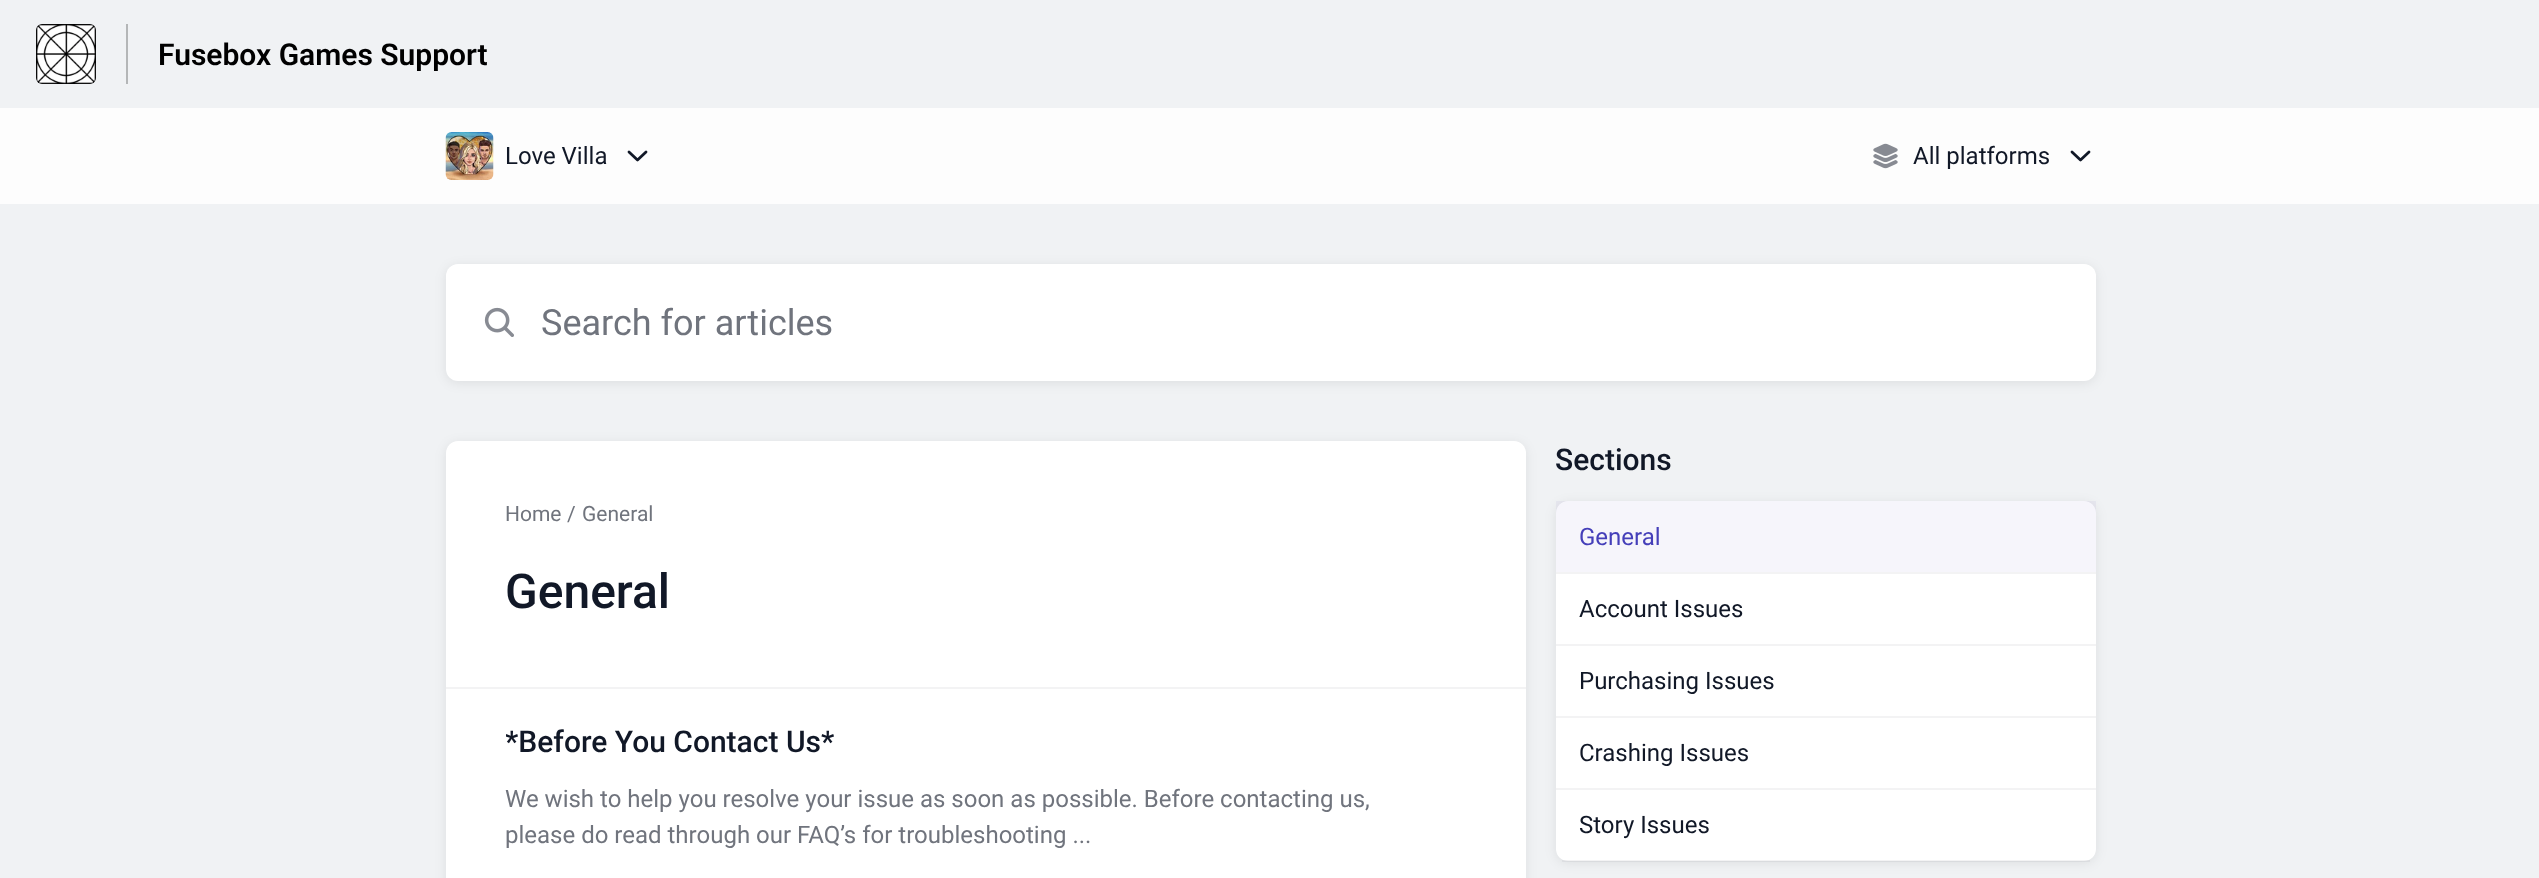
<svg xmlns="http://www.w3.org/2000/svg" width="2539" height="878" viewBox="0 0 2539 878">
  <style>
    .t1 { font: 600 30px Roboto; fill: #000; }
    .t2 { font: 24px Roboto; fill: #111827; }
    .t3 { font: 36px Roboto; fill: #70747d; }
    .t4 { font: 21px Roboto; fill: #70747d; }
    .t5 { font: 500 48px Roboto; fill: #111827; }
    .t6 { font: 500 30px Roboto; fill: #111827; }
    .t7 { font: 24px Roboto; fill: #70747d; }
    .t8 { font: 24px Roboto; fill: #453fb9; }
  </style>
  <defs>
    <clipPath id="clip1"><rect x="506" y="719" width="960" height="45"/></clipPath>
  </defs>
  <rect width="100%" height="100%" fill="#fdfdfd"/>
  <rect x="0" y="0" width="2539" height="108" fill="#f0f2f4"/>
  <rect x="126" y="24" width="2" height="60" fill="#b4b6b7"/>
  <image x="36" y="24" width="60" height="60" href="images/1.png"/>
  <text x="158" y="65" class="t1">Fusebox Games Support</text>
  <image x="445" y="132" width="49" height="48" href="images/2.png"/>
  <text x="505" y="164" class="t2">Love Villa</text>
  <path d="M629 152L637.5 160L646 152" fill="none" stroke="#111827" stroke-width="2.8" stroke-linecap="round" stroke-linejoin="round"/>
  <image x="1873" y="143" width="25" height="26" href="images/3.png"/>
  <text x="1913" y="164" class="t2">All platforms</text>
  <path d="M2072 152L2080.5 160L2089 152" fill="none" stroke="#111827" stroke-width="2.8" stroke-linecap="round" stroke-linejoin="round"/>
  <rect x="0" y="204" width="2539" height="674" fill="#f0f2f4"/>
  <rect x="446" y="266" width="1650" height="117" rx="12" fill="#00000014" filter="blur(6px)"/>
  <rect x="446" y="264" width="1650" height="117" rx="12" fill="#fff"/>
  <image x="484" y="307" width="30" height="30" href="images/4.png"/>
  <text x="541" y="335" class="t3">Search for articles</text>
  <rect x="446" y="443" width="1080" height="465" rx="12" fill="#00000014" filter="blur(6px)"/>
  <path d="M458 441H1514C1520.5 441 1526 446.5 1526 453V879H446V453C446 446.5 451.5 441 458 441Z" fill="#fff"/>
  <rect x="446" y="687" width="1080" height="2" fill="#f3f3f4"/>
  <text x="505" y="521" class="t4">Home</text>
  <text x="567" y="521" class="t4">/</text>
  <text x="582" y="521" class="t4">General</text>
  <text x="505" y="608" class="t5">General</text>
  <g clip-path="url(#clip1)">
    <text x="505" y="752" class="t6">*Before You Contact Us*</text>
  </g>
  <text x="505" y="807" class="t7">We wish to help you resolve your issue as soon as possible. Before contacting us,</text>
  <text x="505" y="843" class="t7">please do read through our FAQ’s for troubleshooting ...</text>
  <text x="1555" y="470" class="t6">Sections</text>
  <rect x="1556" y="503" width="540" height="360" rx="12" fill="#00000014" filter="blur(6px)"/>
  <rect x="1556" y="501" width="540" height="360" rx="12" fill="#fff"/>
  <rect x="1556" y="572" width="540" height="2" fill="#f3f3f4"/>
  <rect x="1556" y="501" width="540" height="71" fill="#453fb90d"/>
  <text x="1579" y="545" class="t8">General</text>
  <rect x="1556" y="644" width="540" height="2" fill="#f3f3f4"/>
  <text x="1579" y="617" class="t2">Account Issues</text>
  <rect x="1556" y="716" width="540" height="2" fill="#f3f3f4"/>
  <text x="1579" y="689" class="t2">Purchasing Issues</text>
  <rect x="1556" y="788" width="540" height="2" fill="#f3f3f4"/>
  <text x="1579" y="761" class="t2">Crashing Issues</text>
  <rect x="1562" y="860" width="528" height="2" fill="#1118270d"/>
  <text x="1579" y="833" class="t2">Story Issues</text>
</svg>
